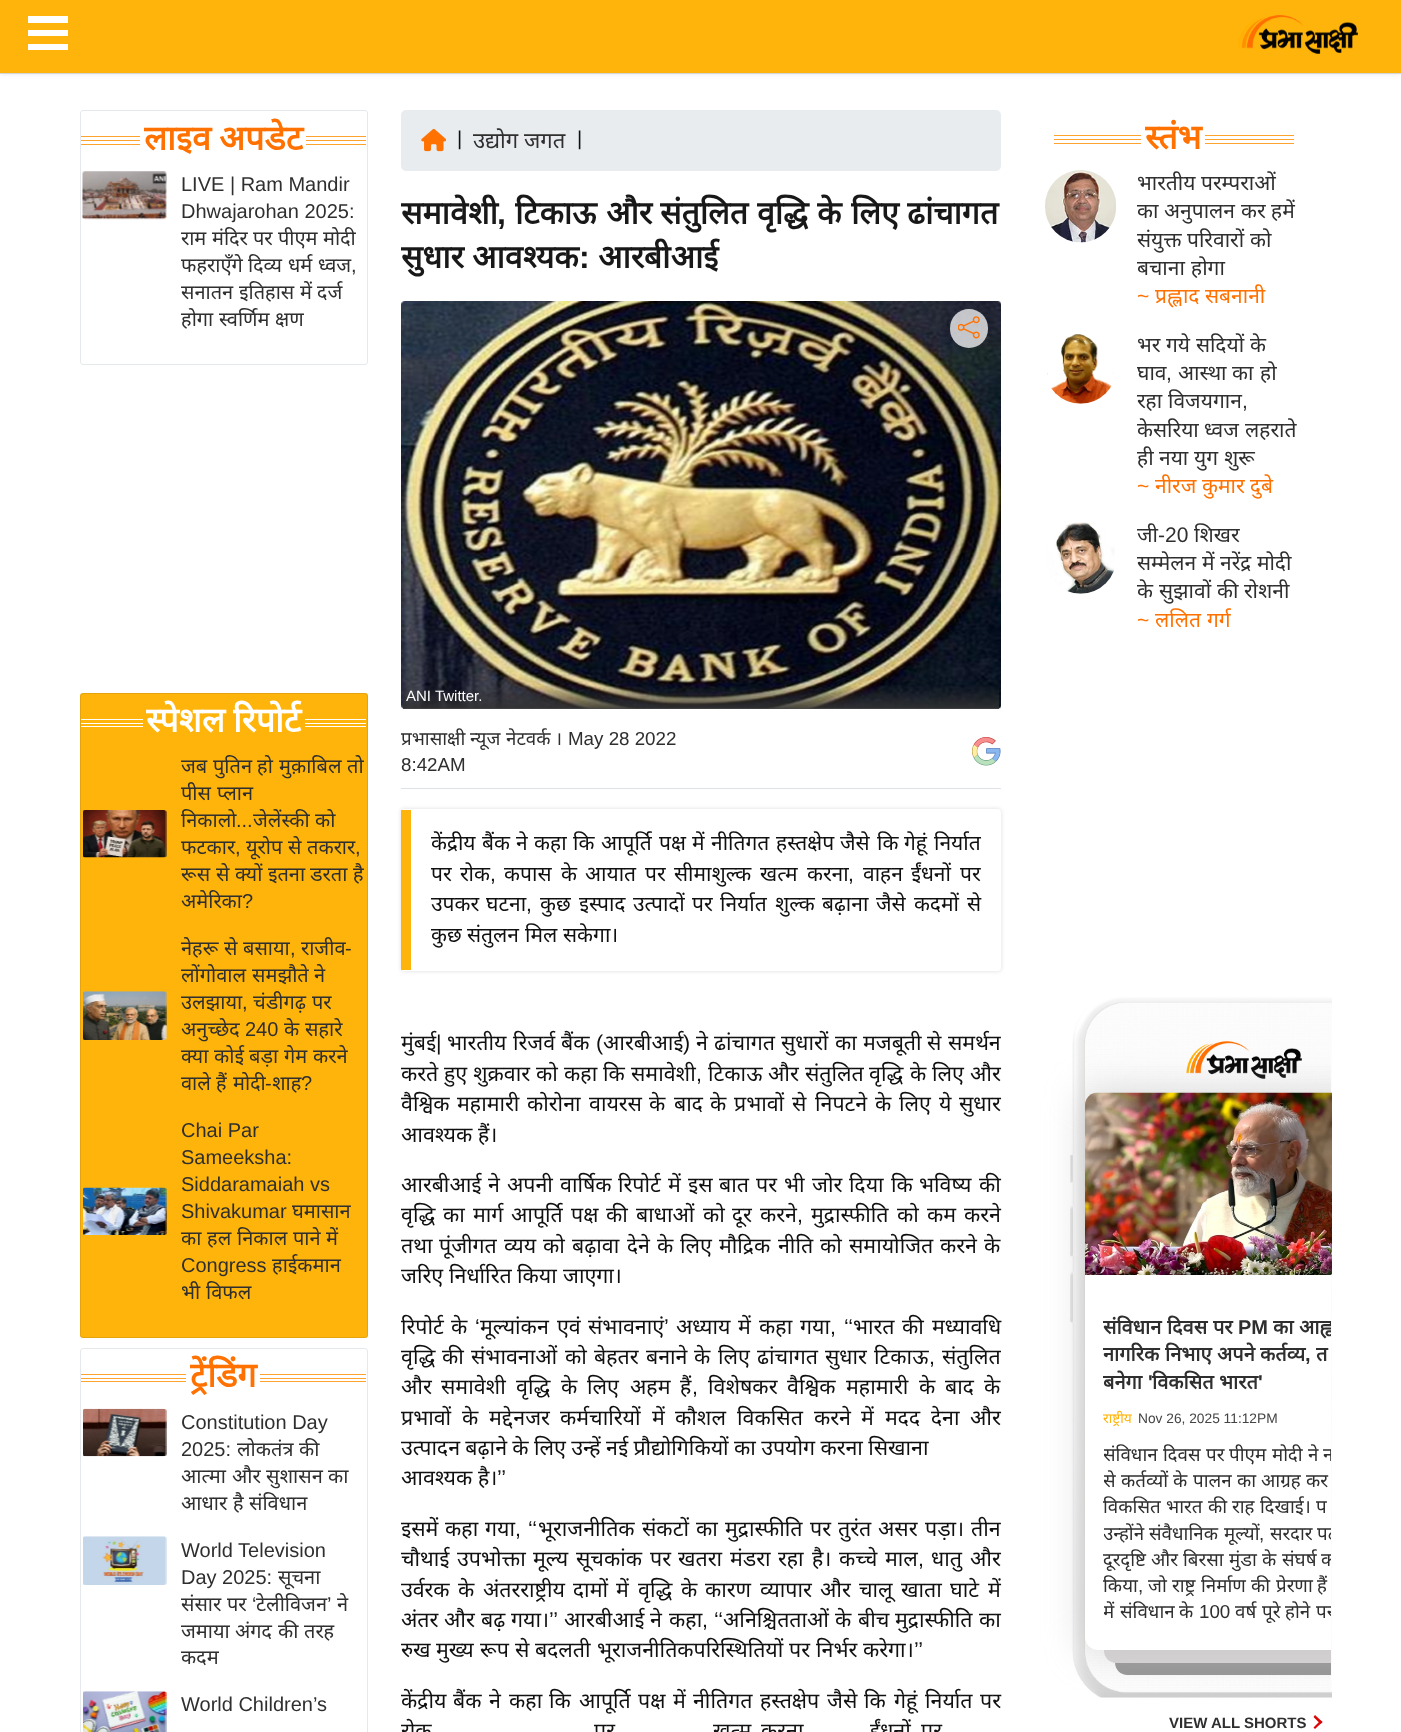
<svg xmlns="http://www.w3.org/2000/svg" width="1401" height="1732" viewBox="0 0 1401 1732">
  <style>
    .t1 { font: bold 34px Noto Sans; fill: #ff7101; }
    .t2 { font: 20px Liberation Sans; fill: #2f2f2f; }
    .t3 { font: 20px Noto Sans; fill: #2f2f2f; }
    .t4 { font: bold 34px Noto Sans; fill: #fff; }
    .t5 { font: 20px Liberation Sans; fill: #101010; }
    .t6 { font: 22px Noto Sans; fill: #2f2f2f; }
    .t7 { font: bold 32px Noto Sans; fill: #181818; }
    .t8 { font: bold 32px Liberation Sans; fill: #181818; }
    .t9 { font: 15px Liberation Sans; fill: #fff; }
    .t10 { font: 18.75px Noto Sans; fill: #2f2f2f; }
    .t11 { font: 18.75px Liberation Sans; fill: #2f2f2f; }
    .t12 { font: 21px Noto Sans; fill: #101010; }
    .t13 { font: 21px Liberation Sans; fill: #101010; }
    .t14 { font: 21.4px Noto Sans; fill: #101010; }
    .t15 { font: 21.4px Liberation Sans; fill: #101010; }
    .t16 { font: 21px Noto Sans; fill: #2f2f2f; }
    .t17 { font: 21px Liberation Sans; fill: #ff7101; }
    .t18 { font: 21px Noto Sans; fill: #ff7101; }
    .t19 { font: 21px Liberation Sans; fill: #2f2f2f; }
    .t20 { font: bold 20px Noto Sans; fill: #2f2f2f; }
    .t21 { font: bold 20px Liberation Sans; fill: #2f2f2f; }
    .t22 { font: 13.75px Noto Sans; fill: #ffb207; }
    .t23 { font: 13.75px Liberation Sans; fill: #444; }
    .t24 { font: bold 15px Liberation Sans; fill: #2f2f2f; }
  </style>
  <defs>
    <linearGradient id="g1" gradientUnits="userSpaceOnUse" x1="701" y1="685" x2="701" y2="709"><stop offset="0" stop-color="#333" stop-opacity="0"/><stop offset="1" stop-color="#333" stop-opacity="0.9"/></linearGradient>
    <clipPath id="clip1"><path d="M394 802H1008V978H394ZM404 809H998C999.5 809 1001 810.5 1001 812V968C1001 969.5 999.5 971 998 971H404C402.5 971 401 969.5 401 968V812C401 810.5 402.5 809 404 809Z" clip-rule="evenodd"/></clipPath>
    <clipPath id="clip2"><rect x="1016" y="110" width="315" height="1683"/></clipPath>
    <clipPath id="clip3"><rect x="1016" y="110" width="315" height="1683"/></clipPath>
    <clipPath id="clip4"><rect x="1104" y="1441" width="227" height="184"/></clipPath>
  </defs>
  <rect width="100%" height="100%" fill="#fff"/>
  <rect x="0" y="0" width="1401" height="74" fill="#0000001a" filter="blur(2.5px)"/>
  <rect x="0" y="0" width="1401" height="73" fill="#ffb40b"/>
  <rect x="0" y="73" width="1401" height="1" fill="#d6d6d6"/>
  <rect x="28" y="16" width="40" height="7" fill="#fff"/>
  <rect x="28" y="30" width="40" height="6" fill="#fff"/>
  <rect x="28" y="44" width="40" height="6" fill="#fff"/>
  <image x="1238" y="15" width="120" height="39" href="images/1.png"/>
  <rect x="80.5" y="110.5" width="287" height="254" rx="2.5" fill="none" stroke="#e6e9eb"/>
  <rect x="81" y="140" width="285" height="1" fill="#fea32d"/>
  <rect x="81" y="136" width="285" height="1" fill="#fea32d"/>
  <rect x="81" y="144" width="285" height="1" fill="#fea32d"/>
  <rect x="140" y="136" width="166" height="9" fill="#fff"/>
  <text x="144" y="150" class="t1">लाइव</text>
  <text x="219" y="150" class="t1">अपडेट</text>
  <image x="82" y="171" width="85" height="49" href="images/2.png"/>
  <text x="181" y="191" class="t2">LIVE | Ram Mandir</text>
  <text x="181" y="218" class="t2">Dhwajarohan 2025:</text>
  <text x="181" y="245" class="t3">राम</text>
  <text x="212" y="245" class="t3">मंदिर</text>
  <text x="253" y="245" class="t3">पर</text>
  <text x="278" y="245" class="t3">पीएम</text>
  <text x="323" y="245" class="t3">मोदी</text>
  <text x="181" y="272" class="t3">फहराएँगे</text>
  <text x="248" y="272" class="t3">दिव्य</text>
  <text x="288" y="272" class="t3">धर्म</text>
  <text x="318" y="272" class="t3">ध्वज</text>
  <text x="351" y="272" class="t2">,</text>
  <text x="181" y="299" class="t3">सनातन</text>
  <text x="239" y="299" class="t3">इतिहास</text>
  <text x="300" y="299" class="t3">में</text>
  <text x="317" y="299" class="t3">दर्ज</text>
  <text x="181" y="326" class="t3">होगा</text>
  <text x="219" y="326" class="t3">स्वर्णिम</text>
  <text x="275" y="326" class="t3">क्षण</text>
  <rect x="80" y="693" width="288" height="645" rx="3" fill="#ffb40b"/>
  <rect x="80.5" y="693.5" width="287" height="644" rx="2.5" fill="none" stroke="#0022331a"/>
  <rect x="81" y="723" width="285" height="1" fill="#fff"/>
  <rect x="81" y="719" width="285" height="1" fill="#fff"/>
  <rect x="81" y="726" width="285" height="1" fill="#fff"/>
  <rect x="143" y="719" width="162" height="8" fill="#ffb40b"/>
  <text x="146" y="732" class="t4">स्पेशल</text>
  <text x="233" y="732" class="t4">रिपोर्ट</text>
  <image x="83" y="810" width="84" height="48" href="images/3.png"/>
  <text x="181" y="773" class="t3">जब</text>
  <text x="213" y="773" class="t3">पुतिन</text>
  <text x="257" y="773" class="t3">हो</text>
  <text x="279" y="773" class="t3">मुक़ाबिल</text>
  <text x="347" y="773" class="t3">तो</text>
  <text x="181" y="800" class="t3">पीस</text>
  <text x="217" y="800" class="t3">प्लान</text>
  <text x="181" y="827" class="t3">निकालो</text>
  <text x="236" y="827" class="t2">...</text>
  <text x="253" y="827" class="t3">जेलेंस्की</text>
  <text x="315" y="827" class="t3">को</text>
  <text x="181" y="854" class="t3">फटकार</text>
  <text x="235" y="854" class="t2">,</text>
  <text x="246" y="854" class="t3">यूरोप</text>
  <text x="288" y="854" class="t3">से</text>
  <text x="307" y="854" class="t3">तकरार</text>
  <text x="355" y="854" class="t2">,</text>
  <text x="181" y="881" class="t3">रूस</text>
  <text x="216" y="881" class="t3">से</text>
  <text x="235" y="881" class="t3">क्यों</text>
  <text x="268" y="881" class="t3">इतना</text>
  <text x="310" y="881" class="t3">डरता</text>
  <text x="353" y="881" class="t3">है</text>
  <text x="181" y="908" class="t3">अमेरिका</text>
  <text x="242" y="908" class="t2">?</text>
  <image x="83" y="991" width="84" height="49" href="images/4.png"/>
  <text x="181" y="955" class="t3">नेहरू</text>
  <text x="224" y="955" class="t3">से</text>
  <text x="243" y="955" class="t3">बसाया</text>
  <text x="301" y="955" class="t3">राजीव</text>
  <text x="345" y="955" class="t2">-</text>
  <text x="290" y="955" class="t2">,</text>
  <text x="181" y="982" class="t3">लोंगोवाल</text>
  <text x="252" y="982" class="t3">समझौते</text>
  <text x="314" y="982" class="t3">ने</text>
  <text x="181" y="1009" class="t3">उलझाया</text>
  <text x="242" y="1009" class="t2">,</text>
  <text x="253" y="1009" class="t3">चंडीगढ़</text>
  <text x="312" y="1009" class="t3">पर</text>
  <text x="181" y="1036" class="t3">अनुच्छेद</text>
  <text x="245" y="1036" class="t2">240</text>
  <text x="284" y="1036" class="t3">के</text>
  <text x="305" y="1036" class="t3">सहारे</text>
  <text x="181" y="1063" class="t3">क्या</text>
  <text x="214" y="1063" class="t3">कोई</text>
  <text x="249" y="1063" class="t3">बड़ा</text>
  <text x="284" y="1063" class="t3">गेम</text>
  <text x="313" y="1063" class="t3">करने</text>
  <text x="181" y="1090" class="t3">वाले</text>
  <text x="216" y="1090" class="t3">हैं</text>
  <text x="233" y="1090" class="t3">मोदी</text>
  <text x="265" y="1090" class="t2">-</text>
  <text x="272" y="1090" class="t3">शाह</text>
  <text x="301" y="1090" class="t2">?</text>
  <image x="83" y="1187" width="84" height="48" href="images/5.png"/>
  <text x="181" y="1137" class="t2">Chai Par</text>
  <text x="181" y="1164" class="t2">Sameeksha:</text>
  <text x="181" y="1191" class="t2">Siddaramaiah vs</text>
  <text x="181" y="1218" class="t2">Shivakumar</text>
  <text x="292" y="1218" class="t3">घमासान</text>
  <text x="181" y="1245" class="t3">का</text>
  <text x="207" y="1245" class="t3">हल</text>
  <text x="237" y="1245" class="t3">निकाल</text>
  <text x="293" y="1245" class="t3">पाने</text>
  <text x="326" y="1245" class="t3">में</text>
  <text x="181" y="1272" class="t2">Congress</text>
  <text x="272" y="1272" class="t3">हाईकमान</text>
  <text x="181" y="1299" class="t3">भी</text>
  <text x="206" y="1299" class="t3">विफल</text>
  <rect x="80.5" y="1348.5" width="287" height="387" rx="2.5" fill="none" stroke="#e6e9eb"/>
  <rect x="81" y="1378" width="285" height="1" fill="#fea32d"/>
  <rect x="81" y="1374" width="285" height="1" fill="#fea32d"/>
  <rect x="81" y="1381" width="285" height="1" fill="#fea32d"/>
  <rect x="186" y="1374" width="74" height="8" fill="#fff"/>
  <text x="190" y="1387" class="t1">ट्रेंडिंग</text>
  <image x="83" y="1408" width="84" height="49" href="images/6.png"/>
  <text x="181" y="1429" class="t2">Constitution Day</text>
  <text x="181" y="1456" class="t2">2025:</text>
  <text x="237" y="1456" class="t3">लोकतंत्र</text>
  <text x="299" y="1456" class="t3">की</text>
  <text x="181" y="1483" class="t3">आत्मा</text>
  <text x="232" y="1483" class="t3">और</text>
  <text x="266" y="1483" class="t3">सुशासन</text>
  <text x="328" y="1483" class="t3">का</text>
  <text x="181" y="1510" class="t3">आधार</text>
  <text x="233" y="1510" class="t3">है</text>
  <text x="249" y="1510" class="t3">संविधान</text>
  <image x="83" y="1536" width="84" height="49" href="images/7.png"/>
  <text x="181" y="1557" class="t2">World Television</text>
  <text x="181" y="1584" class="t2">Day 2025:</text>
  <text x="278" y="1584" class="t3">सूचना</text>
  <text x="181" y="1611" class="t3">संसार</text>
  <text x="252" y="1611" class="t2">‘</text>
  <text x="256" y="1611" class="t3">टेलीविजन</text>
  <text x="327" y="1611" class="t2">’</text>
  <text x="337" y="1611" class="t3">ने</text>
  <text x="227" y="1611" class="t3">पर</text>
  <text x="181" y="1638" class="t3">जमाया</text>
  <text x="235" y="1638" class="t3">अंगद</text>
  <text x="278" y="1638" class="t3">की</text>
  <text x="304" y="1638" class="t3">तरह</text>
  <text x="181" y="1664" class="t3">कदम</text>
  <image x="83" y="1691" width="84" height="41" href="images/8.png"/>
  <text x="181" y="1711" class="t2">World Children’s</text>
  <rect x="401" y="110" width="600" height="61" rx="5" fill="#e9ecef"/>
  <image x="421" y="128" width="25" height="24" href="images/9.png"/>
  <text x="457" y="145" class="t5">|</text>
  <text x="473" y="148" class="t6">उद्योग</text>
  <text x="524" y="148" class="t6">जगत</text>
  <text x="577" y="145" class="t5">|</text>
  <text x="401" y="224" class="t7">समावेशी</text>
  <text x="497" y="224" class="t8">,</text>
  <text x="515" y="224" class="t7">टिकाऊ</text>
  <text x="606" y="224" class="t7">और</text>
  <text x="660" y="224" class="t7">संतुलित</text>
  <text x="757" y="224" class="t7">वृद्धि</text>
  <text x="817" y="224" class="t7">के</text>
  <text x="851" y="224" class="t7">लिए</text>
  <text x="907" y="224" class="t7">ढांचागत</text>
  <text x="401" y="268" class="t7">सुधार</text>
  <text x="472" y="268" class="t7">आवश्यक</text>
  <text x="579" y="268" class="t8">:</text>
  <text x="598" y="268" class="t7">आरबीआई</text>
  <image x="401" y="301" width="600" height="408" href="images/10.png"/>
  <rect x="950" y="309" width="38" height="39" rx="19" fill="#ffffffbd"/>
  <image x="958" y="316" width="22" height="23" href="images/11.png"/>
  <rect x="403" y="686" width="596" height="23" fill="url(#g1)"/>
  <text x="406" y="701" class="t9">ANI Twitter.</text>
  <rect x="401" y="788" width="600" height="1" fill="#dee2e6"/>
  <text x="401" y="745" class="t10">प्रभासाक्षी</text>
  <text x="470" y="745" class="t10">न्यूज</text>
  <text x="506" y="745" class="t10">नेटवर्क</text>
  <text x="555" y="745" class="t10">।</text>
  <text x="568" y="745" class="t11">May 28 2022</text>
  <text x="401" y="771" class="t11">8:42AM</text>
  <image x="972" y="737" width="29" height="29" href="images/12.png"/>
  <g clip-path="url(#clip1)">
    <rect x="401" y="809" width="600" height="162" rx="3" fill="#ddd" filter="blur(2px)"/>
  </g>
  <rect x="401" y="810" width="10" height="160" fill="#ffb40b"/>
  <text x="431" y="850" class="t12">केंद्रीय</text>
  <text x="482" y="850" class="t12">बैंक</text>
  <text x="516" y="850" class="t12">ने</text>
  <text x="534" y="850" class="t12">कहा</text>
  <text x="573" y="850" class="t12">कि</text>
  <text x="601" y="850" class="t12">आपूर्ति</text>
  <text x="659" y="850" class="t12">पक्ष</text>
  <text x="692" y="850" class="t12">में</text>
  <text x="711" y="850" class="t12">नीतिगत</text>
  <text x="776" y="850" class="t12">हस्तक्षेप</text>
  <text x="840" y="850" class="t12">जैसे</text>
  <text x="877" y="850" class="t12">कि</text>
  <text x="904" y="850" class="t12">गेहूं</text>
  <text x="934" y="850" class="t12">निर्यात</text>
  <text x="431" y="881" class="t12">पर</text>
  <text x="460" y="881" class="t12">रोक</text>
  <text x="490" y="881" class="t13">,</text>
  <text x="504" y="881" class="t12">कपास</text>
  <text x="561" y="881" class="t12">के</text>
  <text x="585" y="881" class="t12">आयात</text>
  <text x="645" y="881" class="t12">पर</text>
  <text x="674" y="881" class="t12">सीमाशुल्क</text>
  <text x="760" y="881" class="t12">खत्म</text>
  <text x="807" y="881" class="t12">करना</text>
  <text x="848" y="881" class="t13">,</text>
  <text x="863" y="881" class="t12">वाहन</text>
  <text x="911" y="881" class="t12">ईंधनों</text>
  <text x="960" y="881" class="t12">पर</text>
  <text x="431" y="911" class="t12">उपकर</text>
  <text x="486" y="911" class="t12">घटना</text>
  <text x="526" y="911" class="t13">,</text>
  <text x="540" y="911" class="t12">कुछ</text>
  <text x="579" y="911" class="t12">इस्पाद</text>
  <text x="633" y="911" class="t12">उत्पादों</text>
  <text x="692" y="911" class="t12">पर</text>
  <text x="720" y="911" class="t12">निर्यात</text>
  <text x="775" y="911" class="t12">शुल्क</text>
  <text x="822" y="911" class="t12">बढ़ाना</text>
  <text x="876" y="911" class="t12">जैसे</text>
  <text x="914" y="911" class="t12">कदमों</text>
  <text x="967" y="911" class="t12">से</text>
  <text x="431" y="942" class="t12">कुछ</text>
  <text x="467" y="942" class="t12">संतुलन</text>
  <text x="525" y="942" class="t12">मिल</text>
  <text x="563" y="942" class="t12">सकेगा।</text>
  <text x="401" y="1050" class="t14">मुंबई</text>
  <text x="436" y="1050" class="t15">|</text>
  <text x="447" y="1050" class="t14">भारतीय</text>
  <text x="513" y="1050" class="t14">रिजर्व</text>
  <text x="561" y="1050" class="t14">बैंक</text>
  <text x="596" y="1050" class="t15">(</text>
  <text x="603" y="1050" class="t14">आरबीआई</text>
  <text x="683" y="1050" class="t15">)</text>
  <text x="696" y="1050" class="t14">ने</text>
  <text x="714" y="1050" class="t14">ढांचागत</text>
  <text x="781" y="1050" class="t14">सुधारों</text>
  <text x="835" y="1050" class="t14">का</text>
  <text x="863" y="1050" class="t14">मजबूती</text>
  <text x="927" y="1050" class="t14">से</text>
  <text x="948" y="1050" class="t14">समर्थन</text>
  <text x="401" y="1081" class="t14">करते</text>
  <text x="444" y="1081" class="t14">हुए</text>
  <text x="473" y="1081" class="t14">शुक्रवार</text>
  <text x="536" y="1081" class="t14">को</text>
  <text x="564" y="1081" class="t14">कहा</text>
  <text x="603" y="1081" class="t14">कि</text>
  <text x="631" y="1081" class="t14">समावेशी</text>
  <text x="696" y="1081" class="t15">,</text>
  <text x="708" y="1081" class="t14">टिकाऊ</text>
  <text x="768" y="1081" class="t14">और</text>
  <text x="805" y="1081" class="t14">संतुलित</text>
  <text x="869" y="1081" class="t14">वृद्धि</text>
  <text x="910" y="1081" class="t14">के</text>
  <text x="932" y="1081" class="t14">लिए</text>
  <text x="970" y="1081" class="t14">और</text>
  <text x="401" y="1111" class="t14">वैश्विक</text>
  <text x="457" y="1111" class="t14">महामारी</text>
  <text x="527" y="1111" class="t14">कोरोना</text>
  <text x="589" y="1111" class="t14">वायरस</text>
  <text x="649" y="1111" class="t14">के</text>
  <text x="674" y="1111" class="t14">बाद</text>
  <text x="710" y="1111" class="t14">के</text>
  <text x="734" y="1111" class="t14">प्रभावों</text>
  <text x="792" y="1111" class="t14">से</text>
  <text x="815" y="1111" class="t14">निपटने</text>
  <text x="875" y="1111" class="t14">के</text>
  <text x="899" y="1111" class="t14">लिए</text>
  <text x="939" y="1111" class="t14">ये</text>
  <text x="959" y="1111" class="t14">सुधार</text>
  <text x="401" y="1142" class="t14">आवश्यक</text>
  <text x="478" y="1142" class="t14">हैं।</text>
  <text x="401" y="1192" class="t14">आरबीआई</text>
  <text x="488" y="1192" class="t14">ने</text>
  <text x="507" y="1192" class="t14">अपनी</text>
  <text x="560" y="1192" class="t14">वार्षिक</text>
  <text x="618" y="1192" class="t14">रिपोर्ट</text>
  <text x="668" y="1192" class="t14">में</text>
  <text x="688" y="1192" class="t14">इस</text>
  <text x="719" y="1192" class="t14">बात</text>
  <text x="756" y="1192" class="t14">पर</text>
  <text x="784" y="1192" class="t14">भी</text>
  <text x="812" y="1192" class="t14">जोर</text>
  <text x="849" y="1192" class="t14">दिया</text>
  <text x="891" y="1192" class="t14">कि</text>
  <text x="919" y="1192" class="t14">भविष्य</text>
  <text x="979" y="1192" class="t14">की</text>
  <text x="401" y="1222" class="t14">वृद्धि</text>
  <text x="443" y="1222" class="t14">का</text>
  <text x="473" y="1222" class="t14">मार्ग</text>
  <text x="511" y="1222" class="t14">आपूर्ति</text>
  <text x="571" y="1222" class="t14">पक्ष</text>
  <text x="606" y="1222" class="t14">की</text>
  <text x="636" y="1222" class="t14">बाधाओं</text>
  <text x="703" y="1222" class="t14">को</text>
  <text x="732" y="1222" class="t14">दूर</text>
  <text x="760" y="1222" class="t14">करने</text>
  <text x="797" y="1222" class="t15">,</text>
  <text x="811" y="1222" class="t14">मुद्रास्फीति</text>
  <text x="897" y="1222" class="t14">को</text>
  <text x="927" y="1222" class="t14">कम</text>
  <text x="964" y="1222" class="t14">करने</text>
  <text x="401" y="1253" class="t14">तथा</text>
  <text x="439" y="1253" class="t14">पूंजीगत</text>
  <text x="504" y="1253" class="t14">व्यय</text>
  <text x="543" y="1253" class="t14">को</text>
  <text x="572" y="1253" class="t14">बढ़ावा</text>
  <text x="627" y="1253" class="t14">देने</text>
  <text x="657" y="1253" class="t14">के</text>
  <text x="680" y="1253" class="t14">लिए</text>
  <text x="719" y="1253" class="t14">मौद्रिक</text>
  <text x="778" y="1253" class="t14">नीति</text>
  <text x="820" y="1253" class="t14">को</text>
  <text x="849" y="1253" class="t14">समायोजित</text>
  <text x="940" y="1253" class="t14">करने</text>
  <text x="984" y="1253" class="t14">के</text>
  <text x="401" y="1283" class="t14">जरिए</text>
  <text x="449" y="1283" class="t14">निर्धारित</text>
  <text x="517" y="1283" class="t14">किया</text>
  <text x="563" y="1283" class="t14">जाएगा।</text>
  <text x="401" y="1334" class="t14">रिपोर्ट</text>
  <text x="451" y="1334" class="t14">के</text>
  <text x="475" y="1334" class="t15">‘</text>
  <text x="480" y="1334" class="t14">मूल्यांकन</text>
  <text x="557" y="1334" class="t14">एवं</text>
  <text x="588" y="1334" class="t14">संभावनाएं</text>
  <text x="676" y="1334" class="t14">अध्याय</text>
  <text x="738" y="1334" class="t14">में</text>
  <text x="853" y="1334" class="t14">भारत</text>
  <text x="902" y="1334" class="t14">की</text>
  <text x="932" y="1334" class="t14">मध्यावधि</text>
  <text x="664" y="1334" class="t15">’</text>
  <text x="759" y="1334" class="t14">कहा</text>
  <text x="800" y="1334" class="t14">गया</text>
  <text x="830" y="1334" word-spacing="2" class="t15">, ‘‘</text>
  <text x="401" y="1364" class="t14">वृद्धि</text>
  <text x="442" y="1364" class="t14">की</text>
  <text x="471" y="1364" class="t14">संभावनाओं</text>
  <text x="565" y="1364" class="t14">को</text>
  <text x="594" y="1364" class="t14">बेहतर</text>
  <text x="646" y="1364" class="t14">बनाने</text>
  <text x="694" y="1364" class="t14">के</text>
  <text x="718" y="1364" class="t14">लिए</text>
  <text x="757" y="1364" class="t14">ढांचागत</text>
  <text x="825" y="1364" class="t14">सुधार</text>
  <text x="874" y="1364" class="t14">टिकाऊ</text>
  <text x="929" y="1364" class="t15">,</text>
  <text x="942" y="1364" class="t14">संतुलित</text>
  <text x="401" y="1394" class="t14">और</text>
  <text x="441" y="1394" class="t14">समावेशी</text>
  <text x="516" y="1394" class="t14">वृद्धि</text>
  <text x="561" y="1394" class="t14">के</text>
  <text x="587" y="1394" class="t14">लिए</text>
  <text x="630" y="1394" class="t14">अहम</text>
  <text x="680" y="1394" class="t14">हैं</text>
  <text x="692" y="1394" class="t15">,</text>
  <text x="708" y="1394" class="t14">विशेषकर</text>
  <text x="787" y="1394" class="t14">वैश्विक</text>
  <text x="846" y="1394" class="t14">महामारी</text>
  <text x="919" y="1394" class="t14">के</text>
  <text x="945" y="1394" class="t14">बाद</text>
  <text x="984" y="1394" class="t14">के</text>
  <text x="401" y="1425" class="t14">प्रभावों</text>
  <text x="462" y="1425" class="t14">के</text>
  <text x="489" y="1425" class="t14">मद्देनजर</text>
  <text x="560" y="1425" class="t14">कर्मचारियों</text>
  <text x="652" y="1425" class="t14">में</text>
  <text x="675" y="1425" class="t14">कौशल</text>
  <text x="737" y="1425" class="t14">विकसित</text>
  <text x="814" y="1425" class="t14">करने</text>
  <text x="861" y="1425" class="t14">में</text>
  <text x="885" y="1425" class="t14">मदद</text>
  <text x="931" y="1425" class="t14">देना</text>
  <text x="970" y="1425" class="t14">और</text>
  <text x="401" y="1455" class="t14">उत्पादन बढ़ाने के लिए उन्हें नई प्रौद्योगिकियों का उपयोग करना सिखाना</text>
  <text x="401" y="1485" class="t14">आवश्यक</text>
  <text x="478" y="1485" class="t14">है।</text>
  <text x="497" y="1485" class="t15">’’</text>
  <text x="401" y="1536" class="t14">इसमें</text>
  <text x="445" y="1536" class="t14">कहा</text>
  <text x="485" y="1536" class="t14">गया</text>
  <text x="515" y="1536" word-spacing="1" class="t15">, ‘‘</text>
  <text x="538" y="1536" class="t14">भूराजनीतिक</text>
  <text x="642" y="1536" class="t14">संकटों</text>
  <text x="696" y="1536" class="t14">का</text>
  <text x="725" y="1536" class="t14">मुद्रास्फीति</text>
  <text x="810" y="1536" class="t14">पर</text>
  <text x="838" y="1536" class="t14">तुरंत</text>
  <text x="878" y="1536" class="t14">असर</text>
  <text x="925" y="1536" class="t14">पड़ा।</text>
  <text x="971" y="1536" class="t14">तीन</text>
  <text x="401" y="1566" class="t14">चौथाई</text>
  <text x="457" y="1566" class="t14">उपभोक्ता</text>
  <text x="533" y="1566" class="t14">मूल्य</text>
  <text x="576" y="1566" class="t14">सूचकांक</text>
  <text x="650" y="1566" class="t14">पर</text>
  <text x="678" y="1566" class="t14">खतरा</text>
  <text x="730" y="1566" class="t14">मंडरा</text>
  <text x="778" y="1566" class="t14">रहा</text>
  <text x="812" y="1566" class="t14">है।</text>
  <text x="839" y="1566" class="t14">कच्चे</text>
  <text x="885" y="1566" class="t14">माल</text>
  <text x="918" y="1566" class="t15">,</text>
  <text x="931" y="1566" class="t14">धातु</text>
  <text x="970" y="1566" class="t14">और</text>
  <text x="401" y="1597" class="t14">उर्वरक</text>
  <text x="458" y="1597" class="t14">के</text>
  <text x="483" y="1597" class="t14">अंतरराष्ट्रीय</text>
  <text x="573" y="1597" class="t14">दामों</text>
  <text x="616" y="1597" class="t14">में</text>
  <text x="638" y="1597" class="t14">वृद्धि</text>
  <text x="681" y="1597" class="t14">के</text>
  <text x="705" y="1597" class="t14">कारण</text>
  <text x="760" y="1597" class="t14">व्यापार</text>
  <text x="820" y="1597" class="t14">और</text>
  <text x="859" y="1597" class="t14">चालू</text>
  <text x="901" y="1597" class="t14">खाता</text>
  <text x="950" y="1597" class="t14">घाटे</text>
  <text x="988" y="1597" class="t14">में</text>
  <text x="401" y="1627" class="t14">अंतर</text>
  <text x="444" y="1627" class="t14">और</text>
  <text x="481" y="1627" class="t14">बढ़</text>
  <text x="511" y="1627" class="t14">गया।</text>
  <text x="549" y="1627" class="t15">’’</text>
  <text x="564" y="1627" class="t14">आरबीआई</text>
  <text x="650" y="1627" class="t14">ने</text>
  <text x="669" y="1627" class="t14">कहा</text>
  <text x="702" y="1627" class="t15">, ‘‘</text>
  <text x="723" y="1627" class="t14">अनिश्चितताओं</text>
  <text x="835" y="1627" class="t14">के</text>
  <text x="858" y="1627" class="t14">बीच</text>
  <text x="895" y="1627" class="t14">मुद्रास्फीति</text>
  <text x="979" y="1627" class="t14">का</text>
  <text x="401" y="1657" class="t14">रुख</text>
  <text x="436" y="1657" class="t14">मुख्य</text>
  <text x="480" y="1657" class="t14">रूप</text>
  <text x="515" y="1657" class="t14">से</text>
  <text x="535" y="1657" class="t14">बदलती</text>
  <text x="597" y="1657" class="t14">भूराजनीतिकपरिस्थितियों</text>
  <text x="789" y="1657" class="t14">पर</text>
  <text x="816" y="1657" class="t14">निर्भर</text>
  <text x="863" y="1657" class="t14">करेगा।</text>
  <text x="914" y="1657" class="t15">’’</text>
  <text x="401" y="1708" class="t14">केंद्रीय</text>
  <text x="453" y="1708" class="t14">बैंक</text>
  <text x="489" y="1708" class="t14">ने</text>
  <text x="509" y="1708" class="t14">कहा</text>
  <text x="549" y="1708" class="t14">कि</text>
  <text x="579" y="1708" class="t14">आपूर्ति</text>
  <text x="638" y="1708" class="t14">पक्ष</text>
  <text x="673" y="1708" class="t14">में</text>
  <text x="693" y="1708" class="t14">नीतिगत</text>
  <text x="760" y="1708" class="t14">हस्तक्षेप</text>
  <text x="827" y="1708" class="t14">जैसे</text>
  <text x="864" y="1708" class="t14">कि</text>
  <text x="894" y="1708" class="t14">गेहूं</text>
  <text x="925" y="1708" class="t14">निर्यात</text>
  <text x="980" y="1708" class="t14">पर</text>
  <text x="401" y="1738" class="t14">रोक</text>
  <text x="594" y="1738" class="t14">पर</text>
  <text x="713" y="1738" class="t14">खत्म</text>
  <text x="761" y="1738" class="t14">करना</text>
  <text x="870" y="1738" class="t14">ईंधनों</text>
  <text x="921" y="1738" class="t14">पर</text>
  <rect x="1054" y="139" width="240" height="1" fill="#fea32d"/>
  <rect x="1054" y="135" width="240" height="1" fill="#fea32d"/>
  <rect x="1054" y="143" width="240" height="1" fill="#fea32d"/>
  <rect x="1141" y="135" width="64" height="9" fill="#fff"/>
  <text x="1145" y="149" class="t1">स्तंभ</text>
  <image x="1045" y="170" width="71" height="73" href="images/13.png"/>
  <text x="1137" y="190" class="t16">भारतीय</text>
  <text x="1201" y="190" class="t16">परम्पराओं</text>
  <text x="1137" y="218" class="t16">का</text>
  <text x="1164" y="218" class="t16">अनुपालन</text>
  <text x="1241" y="218" class="t16">कर</text>
  <text x="1271" y="218" class="t16">हमें</text>
  <text x="1137" y="247" class="t16">संयुक्त</text>
  <text x="1187" y="247" class="t16">परिवारों</text>
  <text x="1250" y="247" class="t16">को</text>
  <text x="1137" y="275" class="t16">बचाना</text>
  <text x="1191" y="275" class="t16">होगा</text>
  <text x="1137" y="303" class="t17">~</text>
  <text x="1155" y="303" class="t18">प्रह्लाद</text>
  <text x="1205" y="303" class="t18">सबनानी</text>
  <image x="1047" y="334" width="66" height="70" href="images/14.png"/>
  <text x="1137" y="352" class="t16">भर</text>
  <text x="1166" y="352" class="t16">गये</text>
  <text x="1196" y="352" class="t16">सदियों</text>
  <text x="1250" y="352" class="t16">के</text>
  <text x="1137" y="380" class="t16">घाव</text>
  <text x="1166" y="380" class="t19">,</text>
  <text x="1178" y="380" class="t16">आस्था</text>
  <text x="1232" y="380" class="t16">का</text>
  <text x="1260" y="380" class="t16">हो</text>
  <text x="1137" y="408" class="t16">रहा</text>
  <text x="1168" y="408" class="t16">विजयगान</text>
  <text x="1242" y="408" class="t19">,</text>
  <text x="1137" y="437" class="t16">केसरिया</text>
  <text x="1204" y="437" class="t16">ध्वज</text>
  <text x="1245" y="437" class="t16">लहराते</text>
  <text x="1137" y="465" class="t16">ही</text>
  <text x="1159" y="465" class="t16">नया</text>
  <text x="1194" y="465" class="t16">युग</text>
  <text x="1224" y="465" class="t16">शुरू</text>
  <text x="1137" y="493" class="t17">~</text>
  <text x="1155" y="493" class="t18">नीरज</text>
  <text x="1202" y="493" class="t18">कुमार</text>
  <text x="1250" y="493" class="t18">दुबे</text>
  <image x="1047" y="522" width="68" height="72" href="images/15.png"/>
  <text x="1137" y="542" class="t16">जी</text>
  <text x="1158" y="542" class="t19">-20</text>
  <text x="1194" y="542" class="t16">शिखर</text>
  <text x="1137" y="570" class="t16">सम्मेलन</text>
  <text x="1202" y="570" class="t16">में</text>
  <text x="1220" y="570" class="t16">नरेंद्र</text>
  <text x="1257" y="570" class="t16">मोदी</text>
  <text x="1137" y="598" class="t16">के</text>
  <text x="1159" y="598" class="t16">सुझावों</text>
  <text x="1217" y="598" class="t16">की</text>
  <text x="1244" y="598" class="t16">रोशनी</text>
  <text x="1137" y="627" class="t17">~</text>
  <text x="1155" y="627" class="t18">ललित</text>
  <text x="1207" y="627" class="t18">गर्ग</text>
  <image x="1070" y="997" width="262" height="701" href="images/16.png"/>
  <image x="1186" y="1041" width="116" height="38" href="images/17.png"/>
  <path d="M1127.5 1650H1331V1675H1127.5C1120.5 1675 1115 1669.5 1115 1662.5C1115 1655.5 1120.5 1650 1127.5 1650Z" fill="#969595"/>
  <path d="M1116.5 1638H1331V1663H1116.5C1109.5 1663 1104 1657.5 1104 1650.5C1104 1643.5 1109.5 1638 1116.5 1638Z" fill="#d7d4d4"/>
  <g clip-path="url(#clip2)">
    <rect x="1085" y="1093" width="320" height="557" rx="13" fill="#bfbebea6" filter="blur(19px)"/>
  </g>
  <path d="M1098 1093H1331V1650H1098C1091 1650 1085 1644 1085 1637V1106C1085 1099 1091 1093 1098 1093Z" fill="#fff"/>
  <image x="1085" y="1092" width="247" height="183" href="images/18.png"/>
  <text x="1103" y="1334" class="t20">संविधान</text>
  <text x="1167" y="1334" class="t20">दिवस</text>
  <text x="1213" y="1334" class="t20">पर</text>
  <text x="1238" y="1334" class="t21">PM</text>
  <text x="1273" y="1334" class="t20">का</text>
  <g clip-path="url(#clip3)">
    <text x="1299" y="1334" class="t20">आह्वा</text>
  </g>
  <text x="1103" y="1361" class="t20">नागरिक</text>
  <text x="1165" y="1361" class="t20">निभाए</text>
  <text x="1217" y="1361" class="t20">अपने</text>
  <text x="1260" y="1361" class="t20">कर्तव्य</text>
  <text x="1305" y="1361" class="t21">,</text>
  <text x="1316" y="1361" class="t20">त</text>
  <text x="1103" y="1389" class="t20">बनेगा</text>
  <text x="1148" y="1389" class="t21">'</text>
  <text x="1152" y="1389" class="t20">विकसित</text>
  <text x="1219" y="1389" class="t20">भारत</text>
  <text x="1258" y="1389" class="t21">'</text>
  <text x="1103" y="1423" class="t22">राष्ट्रीय</text>
  <text x="1138" y="1423" class="t23">Nov 26, 2025 11:12PM</text>
  <g clip-path="url(#clip4)">
    <text x="1103" y="1461" class="t10">संविधान</text>
  </g>
  <text x="1163" y="1461" class="t10">दिवस</text>
  <text x="1206" y="1461" class="t10">पर</text>
  <text x="1229" y="1461" class="t10">पीएम</text>
  <text x="1272" y="1461" class="t10">मोदी</text>
  <text x="1308" y="1461" class="t10">ने</text>
  <g clip-path="url(#clip4)">
    <text x="1323" y="1461" class="t10">न</text>
    <text x="1103" y="1487" class="t10">से</text>
  </g>
  <text x="1121" y="1487" class="t10">कर्तव्यों</text>
  <text x="1173" y="1487" class="t10">के</text>
  <text x="1193" y="1487" class="t10">पालन</text>
  <text x="1237" y="1487" class="t10">का</text>
  <text x="1261" y="1487" class="t10">आग्रह</text>
  <text x="1306" y="1487" class="t10">कर</text>
  <text x="1103" y="1513" class="t10">विकसित</text>
  <text x="1166" y="1513" class="t10">भारत</text>
  <text x="1208" y="1513" class="t10">की</text>
  <text x="1232" y="1513" class="t10">राह</text>
  <text x="1260" y="1513" class="t10">दिखाई।</text>
  <text x="1316" y="1513" class="t10">प</text>
  <g clip-path="url(#clip4)">
    <text x="1103" y="1540" class="t10">उन्होंने</text>
  </g>
  <text x="1149" y="1540" class="t10">संवैधानिक</text>
  <text x="1224" y="1540" class="t10">मूल्यों</text>
  <text x="1270" y="1540" class="t10">सरदार</text>
  <g clip-path="url(#clip4)">
    <text x="1317" y="1540" class="t10">पट</text>
  </g>
  <text x="1259" y="1540" class="t11">,</text>
  <text x="1103" y="1566" class="t10">दूरदृष्टि</text>
  <text x="1151" y="1566" class="t10">और</text>
  <text x="1183" y="1566" class="t10">बिरसा</text>
  <text x="1229" y="1566" class="t10">मुंडा</text>
  <text x="1262" y="1566" class="t10">के</text>
  <text x="1282" y="1566" class="t10">संघर्ष</text>
  <g clip-path="url(#clip4)">
    <text x="1321" y="1566" class="t10">क</text>
  </g>
  <text x="1103" y="1592" class="t10">किया</text>
  <text x="1138" y="1592" class="t11">,</text>
  <text x="1148" y="1592" class="t10">जो</text>
  <text x="1172" y="1592" class="t10">राष्ट्र</text>
  <text x="1201" y="1592" class="t10">निर्माण</text>
  <text x="1251" y="1592" class="t10">की</text>
  <text x="1276" y="1592" class="t10">प्रेरणा</text>
  <text x="1317" y="1592" class="t10">हैं</text>
  <g clip-path="url(#clip4)">
    <text x="1103" y="1618" class="t10">में</text>
  </g>
  <text x="1120" y="1618" class="t10">संविधान</text>
  <text x="1179" y="1618" class="t10">के</text>
  <text x="1199" y="1618" class="t11">100</text>
  <text x="1235" y="1618" class="t10">वर्ष</text>
  <text x="1262" y="1618" class="t10">पूरे</text>
  <text x="1285" y="1618" class="t10">होने</text>
  <g clip-path="url(#clip4)">
    <text x="1316" y="1618" class="t10">पर</text>
  </g>
  <text x="1169" y="1728" class="t24">VIEW ALL SHORTS</text>
  <path d="M1313.5 1717L1315 1715L1322.5 1722L1320.5 1724Z" fill="#dc0505"/>
  <path d="M1313.5 1727.5L1320.5 1720.5L1322.5 1722L1315 1729Z" fill="#dc0505"/>
</svg>
